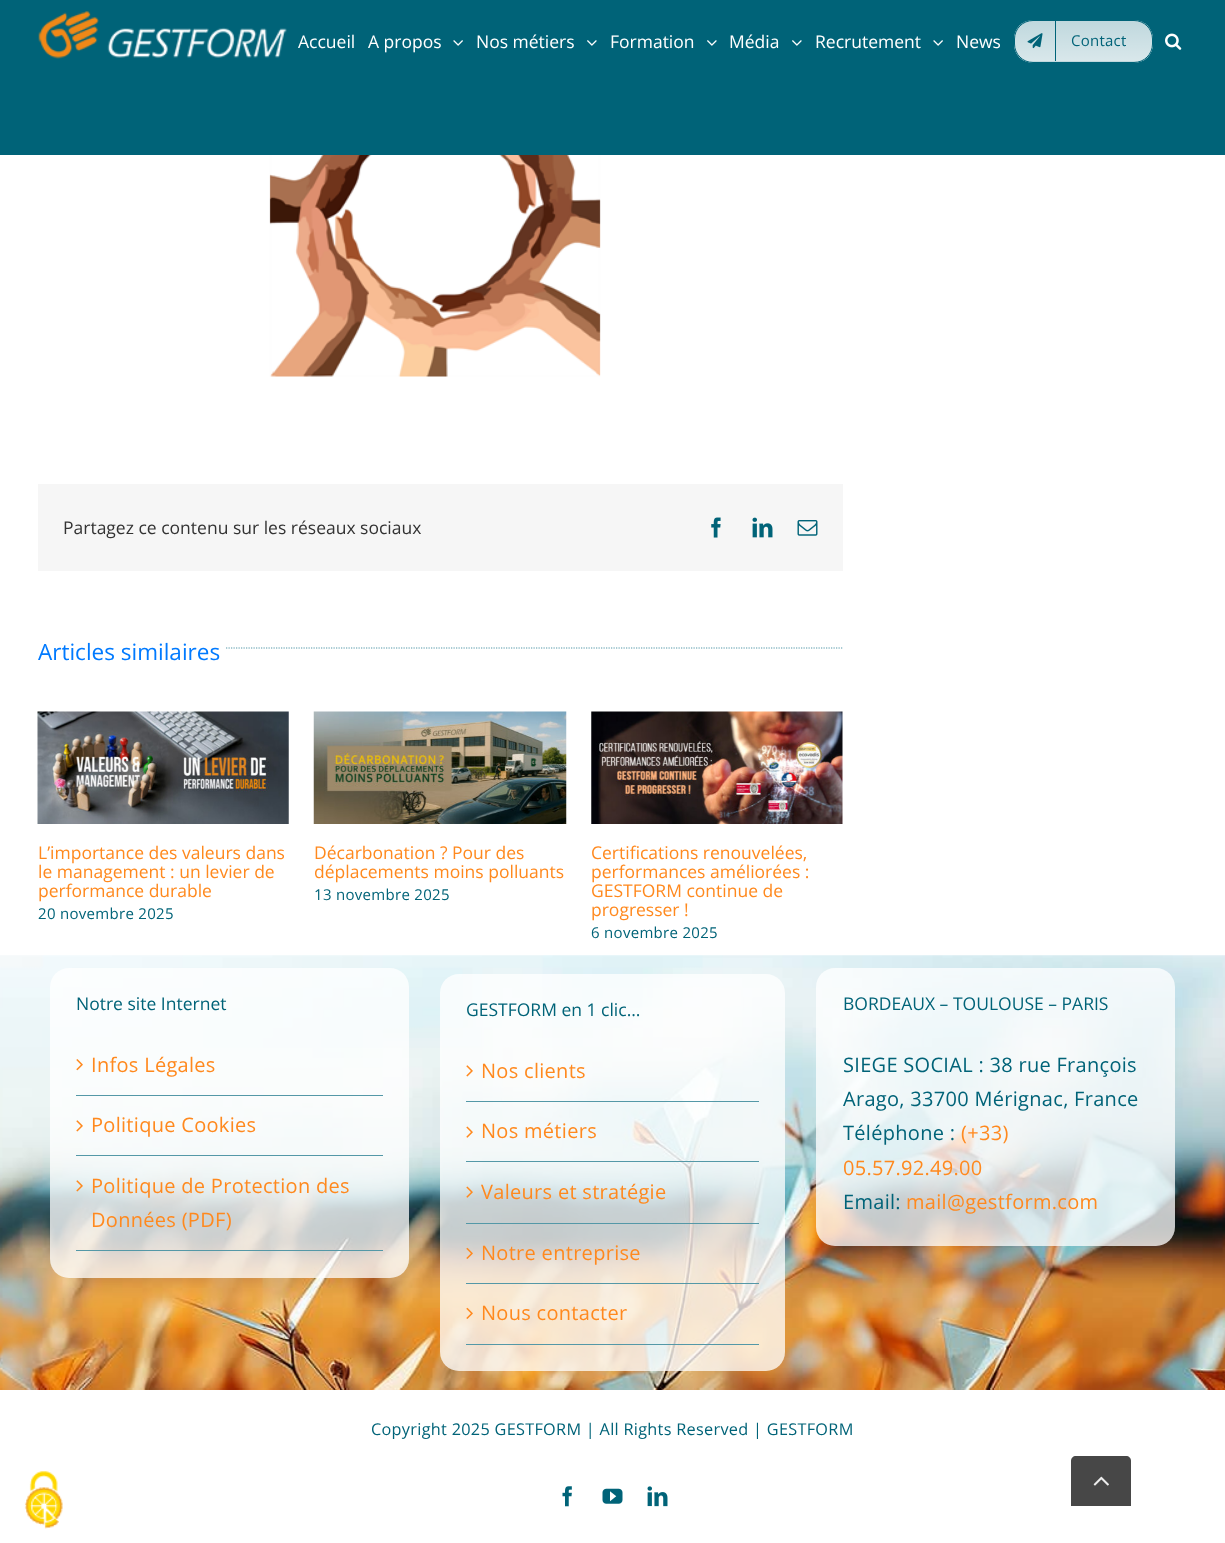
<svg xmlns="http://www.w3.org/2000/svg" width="1225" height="1543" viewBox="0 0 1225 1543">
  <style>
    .t1 { font: 17.5px Open Sans; fill: #fff; }
    .t2 { font: 15px Open Sans; letter-spacing: 0.25px; fill: #006378; }
    .t3 { font: 17.5px Open Sans; fill: #333; }
    .t4 { font: 22.5px Open Sans; fill: #007aff; }
    .t5 { font: 17.5px Open Sans; fill: #ff891e; }
    .t6 { font: 15px Open Sans; letter-spacing: 0.3px; fill: #006378; }
    .t7 { font: 17.5px Open Sans; fill: #006378; }
    .t8 { font: 20px Open Sans; letter-spacing: 0.3px; fill: #ff891e; }
    .t9 { font: 20px Open Sans; letter-spacing: 0.3px; fill: #006378; }
    .t10 { font: 16.25px Open Sans; letter-spacing: 0.3px; fill: #006378; }
  </style>
  <defs>
    <clipPath id="clip1"><rect x="1014" y="20" width="139" height="43" rx="19"/></clipPath>
    <linearGradient id="g1" gradientUnits="userSpaceOnUse" x1="1083" y1="21" x2="1083" y2="61"><stop offset="0" stop-color="#fff" stop-opacity="0.5"/><stop offset="1" stop-color="#fff" stop-opacity="0.7"/></linearGradient>
    <linearGradient id="g2" gradientUnits="userSpaceOnUse" x1="1083" y1="61" x2="1083" y2="101"><stop offset="0" stop-color="#fff" stop-opacity="0.5"/><stop offset="1" stop-color="#fff" stop-opacity="0.7"/></linearGradient>
  </defs>
  <rect width="100%" height="100%" fill="#fff"/>
  <rect x="0" y="0" width="1225" height="155" fill="#006378"/>
  <image x="38" y="11" width="249" height="48" href="images/1.png"/>
  <text x="298" y="48" class="t1">Accueil</text>
  <text x="368" y="48" class="t1">A propos</text>
  <image x="453" y="40" width="10" height="6" href="images/2.png"/>
  <text x="476" y="48" class="t1">Nos métiers</text>
  <image x="587" y="40" width="10" height="6" href="images/3.png"/>
  <text x="610" y="48" class="t1">Formation</text>
  <image x="707" y="40" width="10" height="6" href="images/3.png"/>
  <text x="729" y="48" class="t1">Média</text>
  <image x="792" y="40" width="10" height="6" href="images/3.png"/>
  <text x="815" y="48" class="t1">Recrutement</text>
  <image x="933" y="40" width="10" height="6" href="images/2.png"/>
  <text x="956" y="48" class="t1">News</text>
  <rect x="1014" y="20" width="139" height="43" rx="19" fill="#80b1bc"/>
  <g clip-path="url(#clip1)">
    <rect x="1014" y="21" width="139" height="40" fill="url(#g1)"/>
    <rect x="1024" y="61" width="119" height="2" fill="url(#g2)"/>
  </g>
  <rect x="1014.5" y="20.5" width="138" height="42" rx="18.5" fill="none" stroke="#006378"/>
  <rect x="1055" y="21" width="1" height="40" fill="#006378"/>
  <image x="1027" y="33" width="16" height="16" href="images/4.png"/>
  <text x="1071" y="46" class="t2">Contact</text>
  <image x="1165" y="33" width="17" height="17" href="images/5.png"/>
  <image x="269" y="155" width="332" height="222" href="images/6.png"/>
  <rect x="38" y="484" width="805" height="87" fill="#f6f6f6"/>
  <text x="63" y="534" class="t3">Partagez ce contenu sur les réseaux sociaux</text>
  <image x="711" y="517" width="10" height="21" href="images/7.png"/>
  <image x="752" y="517" width="21" height="21" href="images/8.png"/>
  <image x="797" y="520" width="21" height="16" href="images/9.png"/>
  <text x="38" y="660" class="t4">Articles similaires</text>
  <path d="M226 648H842.5" fill="none" stroke="#5498a7" stroke-width="1.2" stroke-dasharray="1.25 1.25"/>
  <image x="37" y="711" width="252" height="113" href="images/10.png"/>
  <text x="38" y="859" class="t5">L’importance des valeurs dans</text>
  <text x="38" y="878" class="t5">le management : un levier de</text>
  <text x="38" y="897" class="t5">performance durable</text>
  <text x="38" y="919" class="t6">20 novembre 2025</text>
  <image x="313" y="711" width="254" height="113" href="images/11.png"/>
  <text x="314" y="859" class="t5">Décarbonation ? Pour des</text>
  <text x="314" y="878" class="t5">déplacements moins polluants</text>
  <text x="314" y="900" class="t6">13 novembre 2025</text>
  <image x="591" y="711" width="252" height="113" href="images/12.png"/>
  <text x="591" y="859" class="t5">Certifications renouvelées,</text>
  <text x="591" y="878" class="t5">performances améliorées :</text>
  <text x="591" y="897" class="t5">GESTFORM continue de</text>
  <text x="591" y="916" class="t5">progresser !</text>
  <text x="591" y="938" class="t6">6 novembre 2025</text>
  <image x="0" y="955" width="1225" height="435" href="images/13.png"/>
  <rect x="50" y="968" width="359" height="310" rx="19" fill="#ffffffc2"/>
  <text x="76" y="1010" class="t7">Notre site Internet</text>
  <rect x="76" y="1095" width="307" height="1" fill="#5498a7"/>
  <image x="76" y="1059" width="7" height="12" href="images/14.png"/>
  <text x="91" y="1072" class="t8">Infos Légales</text>
  <rect x="76" y="1155" width="307" height="1" fill="#5498a7"/>
  <image x="76" y="1120" width="7" height="12" href="images/15.png"/>
  <text x="91" y="1132" class="t8">Politique Cookies</text>
  <rect x="76" y="1250" width="307" height="1" fill="#5498a7"/>
  <image x="76" y="1180" width="7" height="12" href="images/16.png"/>
  <text x="91" y="1193" class="t8">Politique de Protection des</text>
  <text x="91" y="1227" class="t8">Données (PDF)</text>
  <rect x="440" y="974" width="345" height="397" rx="19" fill="#ffffffc2"/>
  <text x="466" y="1016" class="t7">GESTFORM en 1 clic…</text>
  <rect x="466" y="1101" width="293" height="1" fill="#5498a7"/>
  <image x="466" y="1065" width="7" height="12" href="images/17.png"/>
  <text x="481" y="1078" class="t8">Nos clients</text>
  <rect x="466" y="1161" width="293" height="1" fill="#5498a7"/>
  <image x="466" y="1126" width="7" height="12" href="images/18.png"/>
  <text x="481" y="1138" class="t8">Nos métiers</text>
  <rect x="466" y="1223" width="293" height="1" fill="#5498a7"/>
  <image x="466" y="1186" width="7" height="12" href="images/19.png"/>
  <text x="481" y="1199" class="t8">Valeurs et stratégie</text>
  <rect x="466" y="1283" width="293" height="1" fill="#5498a7"/>
  <image x="466" y="1247" width="7" height="12" href="images/20.png"/>
  <text x="481" y="1260" class="t8">Notre entreprise</text>
  <rect x="466" y="1344" width="293" height="1" fill="#5498a7"/>
  <image x="466" y="1307" width="7" height="12" href="images/21.png"/>
  <text x="481" y="1320" class="t8">Nous contacter</text>
  <rect x="816" y="968" width="359" height="278" rx="19" fill="#ffffffc2"/>
  <text x="843" y="1010" class="t7">BORDEAUX – TOULOUSE – PARIS</text>
  <text x="843" y="1072" class="t9">SIEGE SOCIAL : 38 rue François</text>
  <text x="843" y="1106" class="t9">Arago, 33700 Mérignac, France</text>
  <text x="843" y="1140" class="t9">Téléphone :</text>
  <text x="961" y="1140" class="t8">(+33)</text>
  <text x="843" y="1175" class="t8">05.57.92.49.00</text>
  <text x="843" y="1209" class="t9">Email:</text>
  <text x="906" y="1209" class="t8">mail@gestform.com</text>
  <text x="371" y="1435" class="t10">Copyright 2025 GESTFORM | All Rights Reserved | GESTFORM</text>
  <image x="562" y="1486" width="10" height="21" href="images/22.png"/>
  <image x="602" y="1488" width="21" height="16" href="images/23.png"/>
  <image x="647" y="1486" width="21" height="21" href="images/24.png"/>
  <image x="24" y="1471" width="39" height="58" href="images/25.png"/>
  <path d="M1076 1456H1126C1129 1456 1131 1458 1131 1461V1506H1071V1461C1071 1458 1073 1456 1076 1456Z" fill="#474747"/>
  <image x="1093" y="1476" width="16" height="10" href="images/26.png"/>
</svg>
